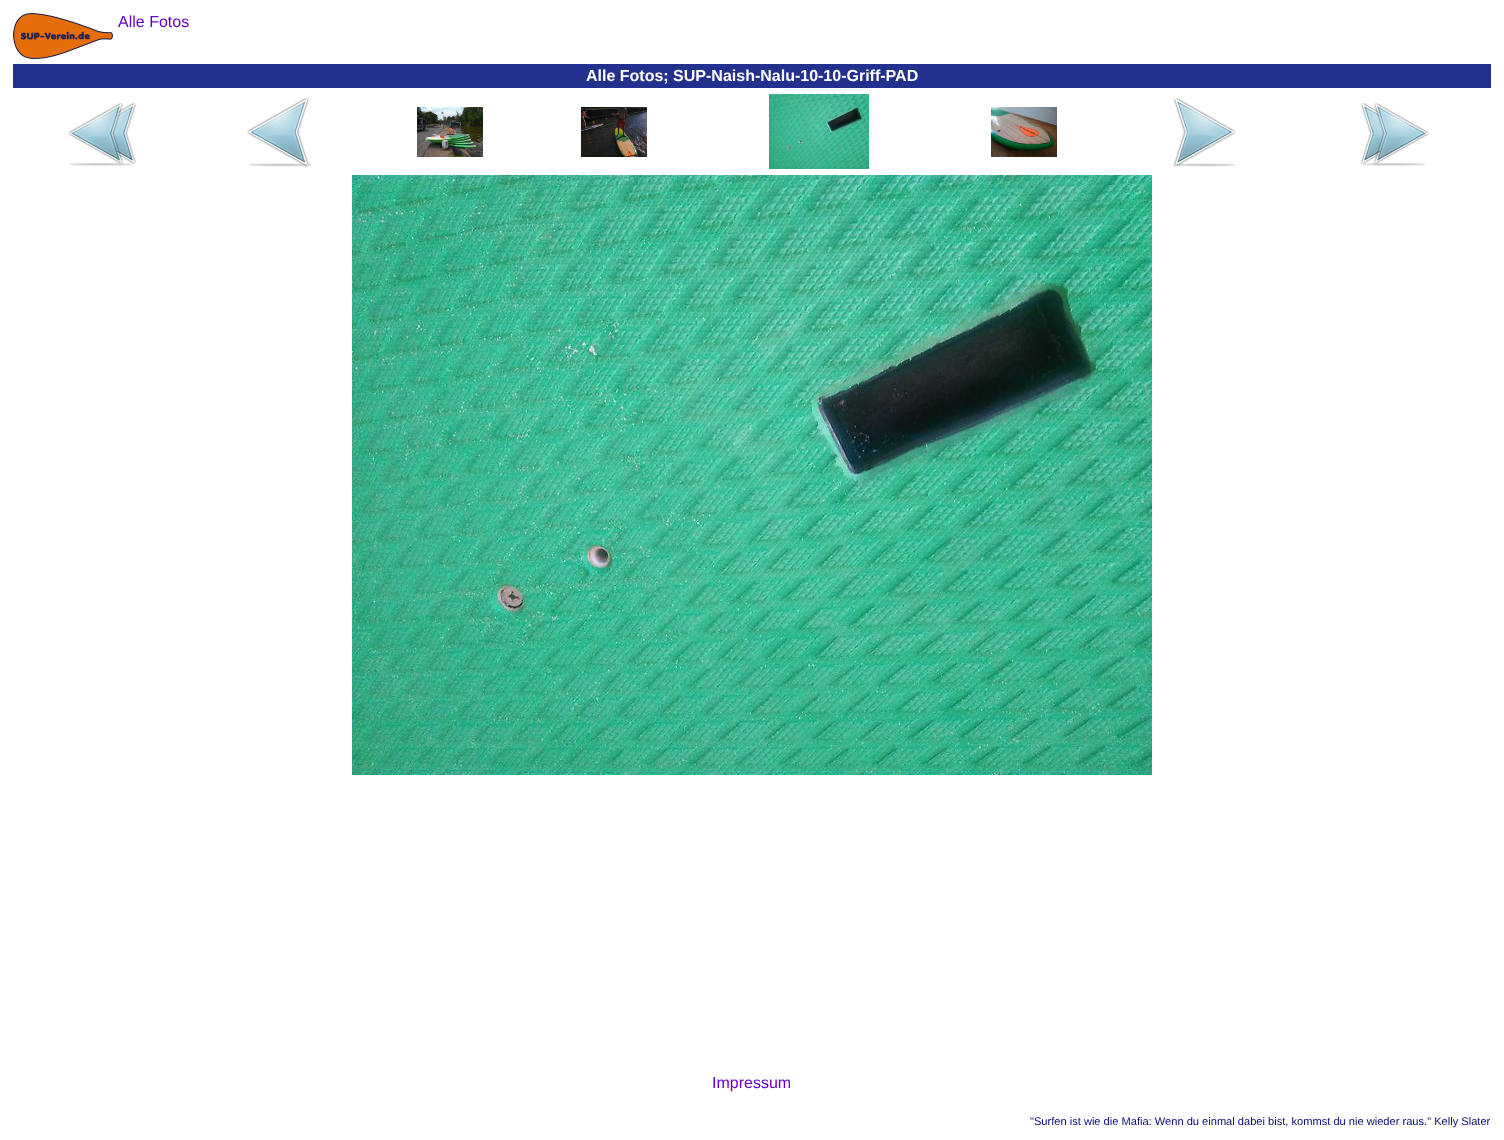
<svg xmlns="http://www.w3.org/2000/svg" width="1504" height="1140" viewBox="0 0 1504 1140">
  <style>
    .t1 { font: 16px Liberation Sans; fill: #60c; }
    .t2 { font: bold 16px Liberation Sans; fill: #fff; }
    .t3 { font: 11.1px Liberation Sans; fill: #080875; }
  </style>
  <rect width="100%" height="100%" fill="#fff"/>
  <image x="13" y="13" width="100" height="46" href="images/1.png"/>
  <text x="118" y="27" class="t1">Alle Fotos</text>
  <rect x="13" y="64" width="1478" height="24" fill="#23308e"/>
  <text x="586" y="81" class="t2">Alle Fotos; SUP-Naish-Nalu-10-10-Griff-PAD</text>
  <image x="68" y="103" width="69" height="63" href="images/2.png"/>
  <image x="247" y="98" width="65" height="69" href="images/3.png"/>
  <image x="417" y="107" width="66" height="50" href="images/4.png"/>
  <image x="581" y="107" width="66" height="50" href="images/5.png"/>
  <image x="769" y="94" width="100" height="75" href="images/6.png"/>
  <image x="991" y="107" width="66" height="50" href="images/7.png"/>
  <image x="1173" y="98" width="63" height="69" href="images/8.png"/>
  <image x="1360" y="103" width="69" height="63" href="images/9.png"/>
  <image x="352" y="175" width="800" height="600" href="images/10.png"/>
  <text x="712" y="1088" class="t1">Impressum</text>
  <text x="1030" y="1125" class="t3">"Surfen ist wie die Mafia: Wenn du einmal dabei bist, kommst du nie wieder raus." Kelly Slater</text>
</svg>
